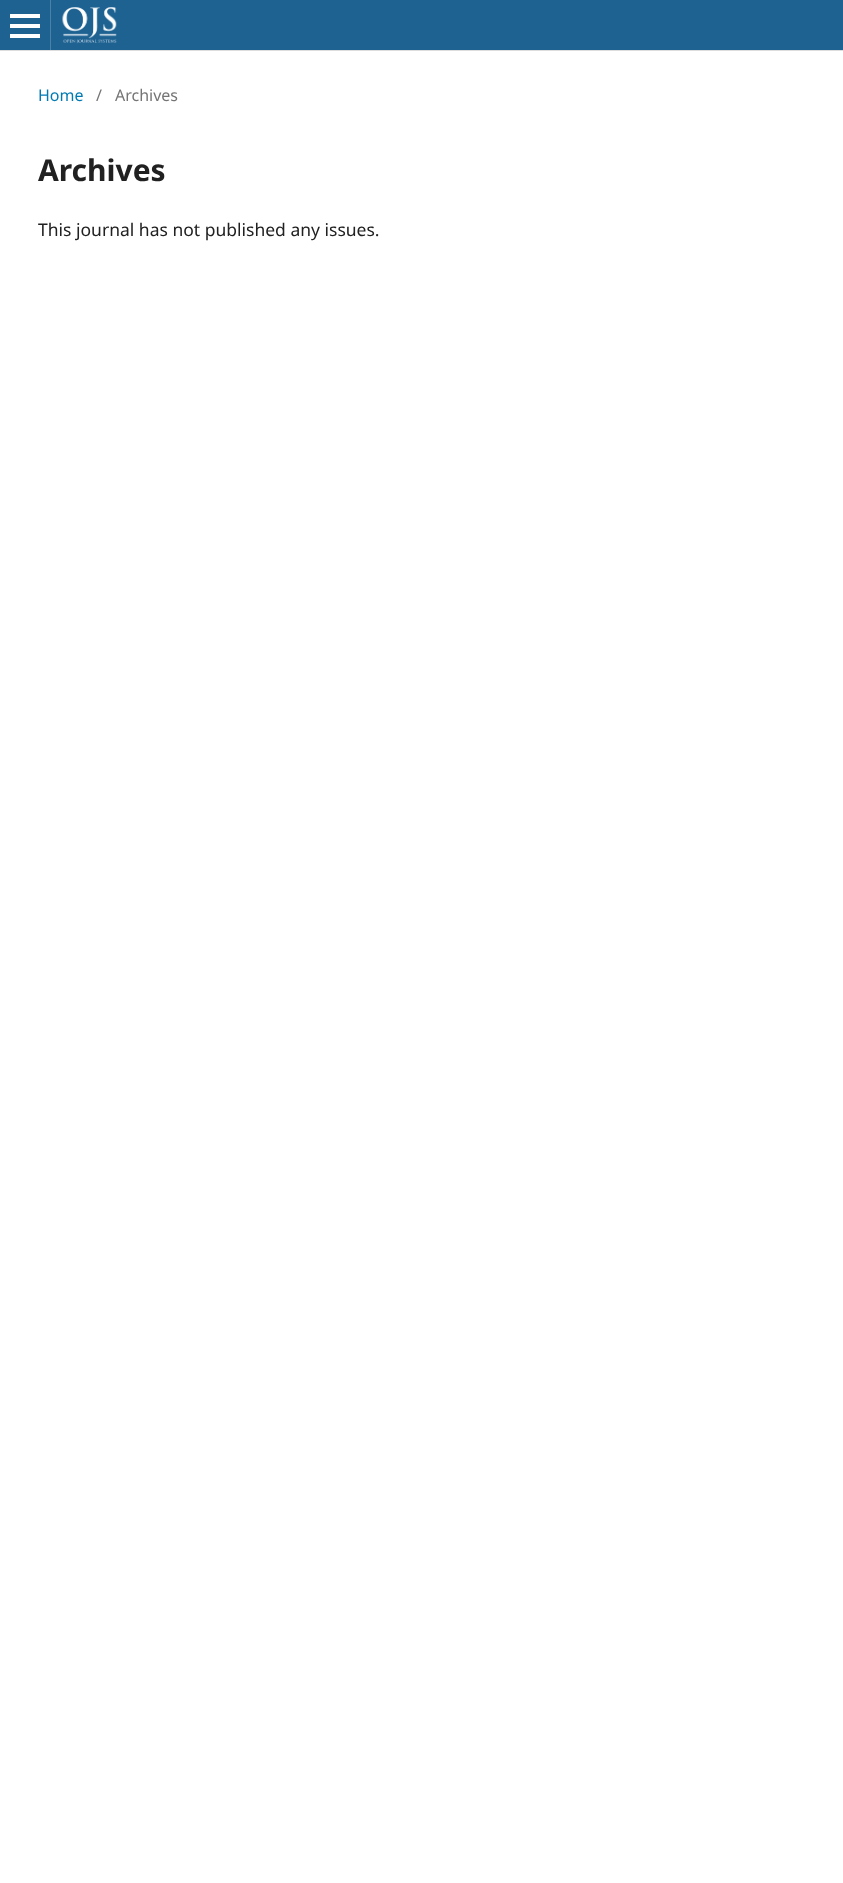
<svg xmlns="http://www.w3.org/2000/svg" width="843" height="1883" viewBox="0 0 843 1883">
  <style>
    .t1 { font: 16px Noto Sans; fill: #007ab2; }
    .t2 { font: 16px Noto Sans; fill: #757575; }
    .t3 { font: bold 30px Noto Sans; fill: #212121; }
    .t4 { font: 17.5px Noto Sans; fill: #212121; }
  </style>
  <rect width="100%" height="100%" fill="#fff"/>
  <rect x="0" y="0" width="843" height="50" fill="#1e6292"/>
  <rect x="0" y="50" width="843" height="1" fill="#ddd"/>
  <rect x="50" y="0" width="1" height="50" fill="#4b81a8"/>
  <rect x="10" y="34" width="30" height="4" fill="#fff"/>
  <rect x="10" y="14" width="30" height="4" fill="#fff"/>
  <rect x="10" y="24" width="30" height="4" fill="#fff"/>
  <image x="62" y="7" width="55" height="37" href="images/1.png"/>
  <text x="38" y="101" class="t1">Home</text>
  <text x="96" y="101" class="t2">/</text>
  <text x="115" y="101" class="t2">Archives</text>
  <text x="38" y="181" class="t3">Archives</text>
  <text x="38" y="236" class="t4">This journal has not published any issues.</text>
</svg>
